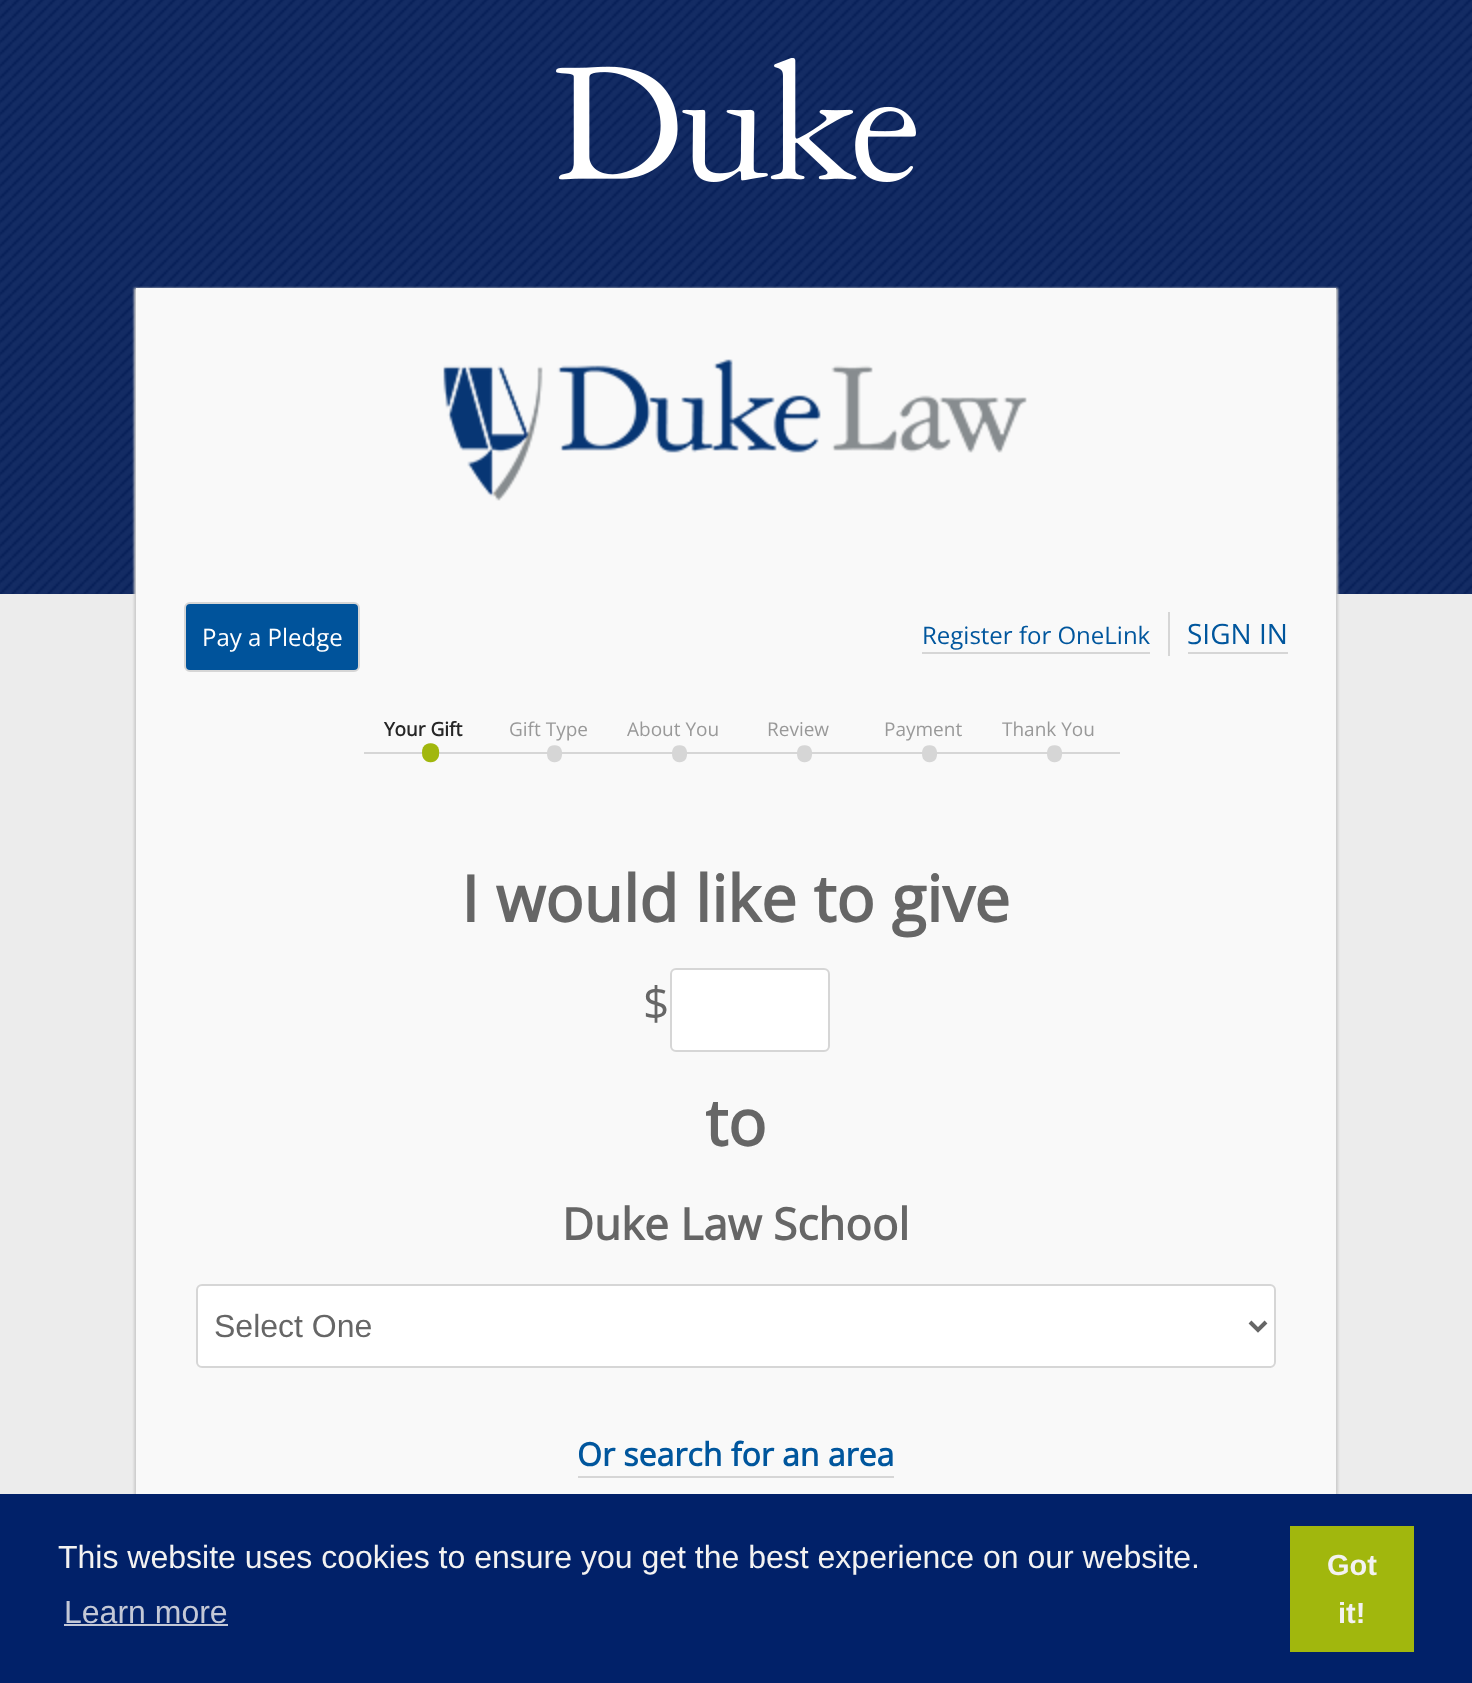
<svg xmlns="http://www.w3.org/2000/svg" width="1472" height="1683" viewBox="0 0 1472 1683">
  <style>
    .t1 { font: 24px Open Sans; fill: #fff; }
    .t2 { font: 24px Open Sans; fill: #00569d; }
    .t3 { font: 28px Open Sans; fill: #00569d; }
    .t4 { font: bold 19px Open Sans; fill: #262626; }
    .t5 { font: bold 72px Open Sans; fill: #a1b70d; }
    .t6 { font: 19px Open Sans; fill: #999; }
    .t7 { font: 72px Open Sans; fill: #d6d6d6; }
    .t8 { font: bold 64px Open Sans; fill: #666; }
    .t9 { font: 46px Open Sans; fill: #666; }
    .t10 { font: bold 44px Open Sans; fill: #666; }
    .t11 { font: 32px Liberation Sans; fill: #666; }
    .t12 { font: bold 32px Open Sans; fill: #00569d; }
    .t13 { font: 32px Liberation Sans; fill: #f3f2f1; }
    .t14 { font: 32px Liberation Sans; fill: #c3c8d6; }
    .t15 { font: bold 29px Liberation Sans; fill: #f3f2f1; }
  </style>
  <rect width="100%" height="100%" fill="#ececec"/>
  <image x="0" y="0" width="1472" height="594" href="images/1.png"/>
  <image x="556" y="58" width="360" height="124" href="images/2.png"/>
  <rect x="134" y="288" width="1204" height="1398" fill="#ccc" filter="blur(1px)"/>
  <rect x="136" y="288" width="1200" height="1206" fill="#f9f9f9"/>
  <image x="443" y="359" width="584" height="142" href="images/3.png"/>
  <rect x="185" y="603" width="174" height="68" rx="5" fill="#00539b" stroke="#d6d6d6" stroke-width="2"/>
  <text x="202" y="646" class="t1">Pay a Pledge</text>
  <text x="922" y="644" class="t2">Register for OneLink</text>
  <rect x="922" y="652" width="228" height="2" fill="#d6d6d6"/>
  <rect x="1168" y="612" width="2" height="44" fill="#d6d6d6"/>
  <text x="1187" y="644" class="t3">SIGN IN</text>
  <rect x="1188" y="652" width="100" height="2" fill="#d6d6d6"/>
  <text x="384" y="736" class="t4">Your Gift</text>
  <rect x="364" y="752" width="756" height="2" fill="#d6d6d6"/>
  <text x="416" y="780" class="t5">•</text>
  <text x="509" y="736" class="t6">Gift Type</text>
  <text x="541" y="780" class="t7">•</text>
  <text x="627" y="736" class="t6">About You</text>
  <text x="666" y="780" class="t7">•</text>
  <text x="767" y="736" class="t6">Review</text>
  <text x="791" y="780" class="t7">•</text>
  <text x="884" y="736" class="t6">Payment</text>
  <text x="916" y="780" class="t7">•</text>
  <text x="1002" y="736" class="t6">Thank You</text>
  <text x="1041" y="780" class="t7">•</text>
  <text x="461" y="922" class="t8">I would like to give</text>
  <text x="643" y="1020" class="t9">$</text>
  <rect x="671" y="969" width="158" height="82" rx="5" fill="#fff" stroke="#d6d6d6" stroke-width="2"/>
  <text x="705" y="1146" class="t8">to</text>
  <text x="562" y="1240" class="t10">Duke Law School</text>
  <rect x="197" y="1285" width="1078" height="82" rx="5" fill="#fff" stroke="#d6d6d6" stroke-width="2"/>
  <path d="M1250 1322L1258 1330L1266 1322" fill="none" stroke="#666" stroke-width="4"/>
  <text x="214" y="1337" class="t11">Select One</text>
  <text x="577" y="1466" class="t12">Or search for an area</text>
  <rect x="578" y="1476" width="316" height="2" fill="#d6d6d6"/>
  <rect x="0" y="1494" width="1472" height="189" fill="#012169"/>
  <text x="58" y="1568" class="t13">This website uses cookies to ensure you get the best experience on our website.</text>
  <text x="64" y="1623" class="t14">Learn more</text>
  <rect x="64" y="1624" width="164" height="2" fill="#c3c8d6"/>
  <rect x="1290" y="1526" width="124" height="126" fill="#a1b70d"/>
  <text x="1327" y="1575" class="t15">Got</text>
  <text x="1338" y="1623" class="t15">it!</text>
</svg>
